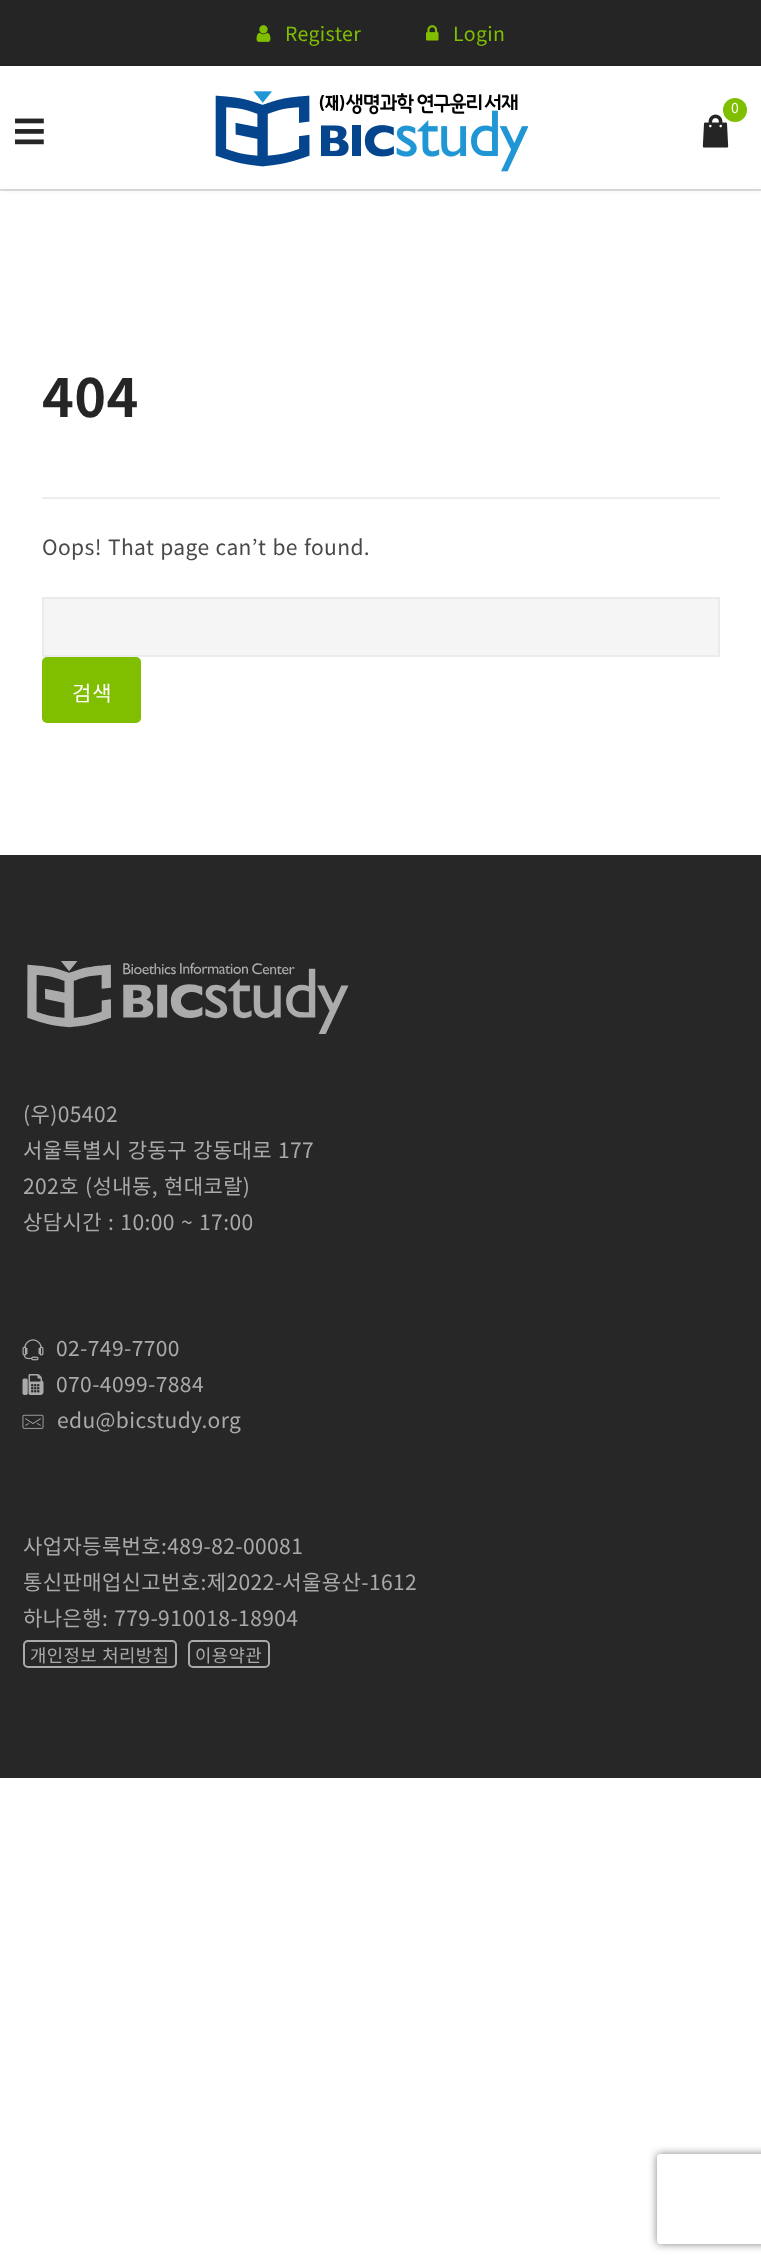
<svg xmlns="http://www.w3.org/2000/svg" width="761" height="2265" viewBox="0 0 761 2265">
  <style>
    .t1 { font: 19.5px Noto Sans KR; letter-spacing: 0.4px; fill: #7fbf00; }
    .t2 { font: 14px Noto Sans KR; letter-spacing: 0.4px; fill: #fff; }
    .t3 { font: bold 54px Noto Sans KR; letter-spacing: 0.4px; fill: #252525; }
    .t4 { font: 21px Noto Sans KR; letter-spacing: 0.4px; fill: #494949; }
    .t5 { font: 21px Noto Sans KR; letter-spacing: 1px; fill: #fff; }
    .t6 { font: 21px Noto Sans KR; letter-spacing: 0.4px; fill: #aaa; }
    .t7 { font: 17.75px Noto Sans KR; letter-spacing: 0.4px; fill: #aaa; }
  </style>
  <defs>
    <clipPath id="clip1"><path d="M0 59H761V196H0ZM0 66H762V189H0Z" clip-rule="evenodd"/></clipPath>
    <clipPath id="clip2"><path d="M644 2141H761V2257H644ZM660 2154H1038C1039.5 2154 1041 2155.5 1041 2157V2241C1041 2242.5 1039.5 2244 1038 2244H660C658.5 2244 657 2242.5 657 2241V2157C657 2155.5 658.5 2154 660 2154Z" clip-rule="evenodd"/></clipPath>
  </defs>
  <rect width="100%" height="100%" fill="#fff"/>
  <rect x="0" y="189" width="761" height="2" fill="#e6e6e6"/>
  <rect x="0" y="0" width="761" height="66" fill="#252525"/>
  <image x="256" y="25" width="15" height="17" href="images/1.png"/>
  <text x="285" y="41" class="t1">Register</text>
  <image x="426" y="25" width="13" height="16" href="images/2.png"/>
  <text x="453" y="41" class="t1">Login</text>
  <g clip-path="url(#clip1)">
    <rect x="0" y="66" width="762" height="123" fill="#00000033" filter="blur(2px)"/>
  </g>
  <image x="215" y="91" width="313" height="81" href="images/3.png"/>
  <image x="702" y="114" width="27" height="34" href="images/4.png"/>
  <circle cx="735" cy="110" r="12" fill="#7fbf00"/>
  <text x="731" y="113" class="t2">0</text>
  <image x="15" y="118" width="29" height="27" href="images/5.png"/>
  <rect x="42" y="497" width="678" height="2" fill="#eee"/>
  <text x="42" y="417" class="t3">404</text>
  <text x="42" y="555" word-spacing="1" class="t4">Oops! That page can’t be found.</text>
  <rect x="43" y="598" width="676" height="58" fill="#f5f5f5" stroke="#ebebeb" stroke-width="2"/>
  <rect x="42" y="657" width="99" height="66" rx="5" fill="#7fbf00"/>
  <text x="72" y="701" class="t5">검색</text>
  <rect x="0" y="855" width="761" height="923" fill="#272727"/>
  <image x="27" y="961" width="322" height="73" href="images/6.png"/>
  <text x="23" y="1122" class="t6">(우)05402</text>
  <text x="23" y="1158" word-spacing="1" class="t6">서울특별시 강동구 강동대로 177</text>
  <text x="23" y="1194" word-spacing="1" class="t6">202호 (성내동, 현대코랄)</text>
  <text x="23" y="1230" word-spacing="1" class="t6">상담시간 : 10:00 ~ 17:00</text>
  <image x="22" y="1339" width="22" height="22" href="images/7.png"/>
  <text x="56" y="1356" class="t6">02-749-7700</text>
  <image x="22" y="1374" width="22" height="21" href="images/8.png"/>
  <text x="56" y="1392" class="t6">070-4099-7884</text>
  <image x="22" y="1414" width="22" height="15" href="images/9.png"/>
  <text x="57" y="1428" class="t6">edu@bicstudy.org</text>
  <text x="23" y="1554" class="t6">사업자등록번호:489-82-00081</text>
  <text x="23" y="1590" class="t6">통신판매업신고번호:제2022-서울용산-1612</text>
  <text x="23" y="1626" word-spacing="1" class="t6">하나은행: 779-910018-18904</text>
  <rect x="24" y="1641" width="152" height="26" rx="4" fill="none" stroke="#aaa" stroke-width="2"/>
  <text x="30" y="1662" word-spacing="1" class="t7">개인정보 처리방침</text>
  <rect x="189" y="1641" width="80" height="26" rx="4" fill="none" stroke="#aaa" stroke-width="2"/>
  <text x="195" y="1662" class="t7">이용약관</text>
  <g clip-path="url(#clip2)">
    <rect x="657" y="2154" width="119" height="90" rx="3" fill="#808080" filter="blur(4px)"/>
  </g>
</svg>
